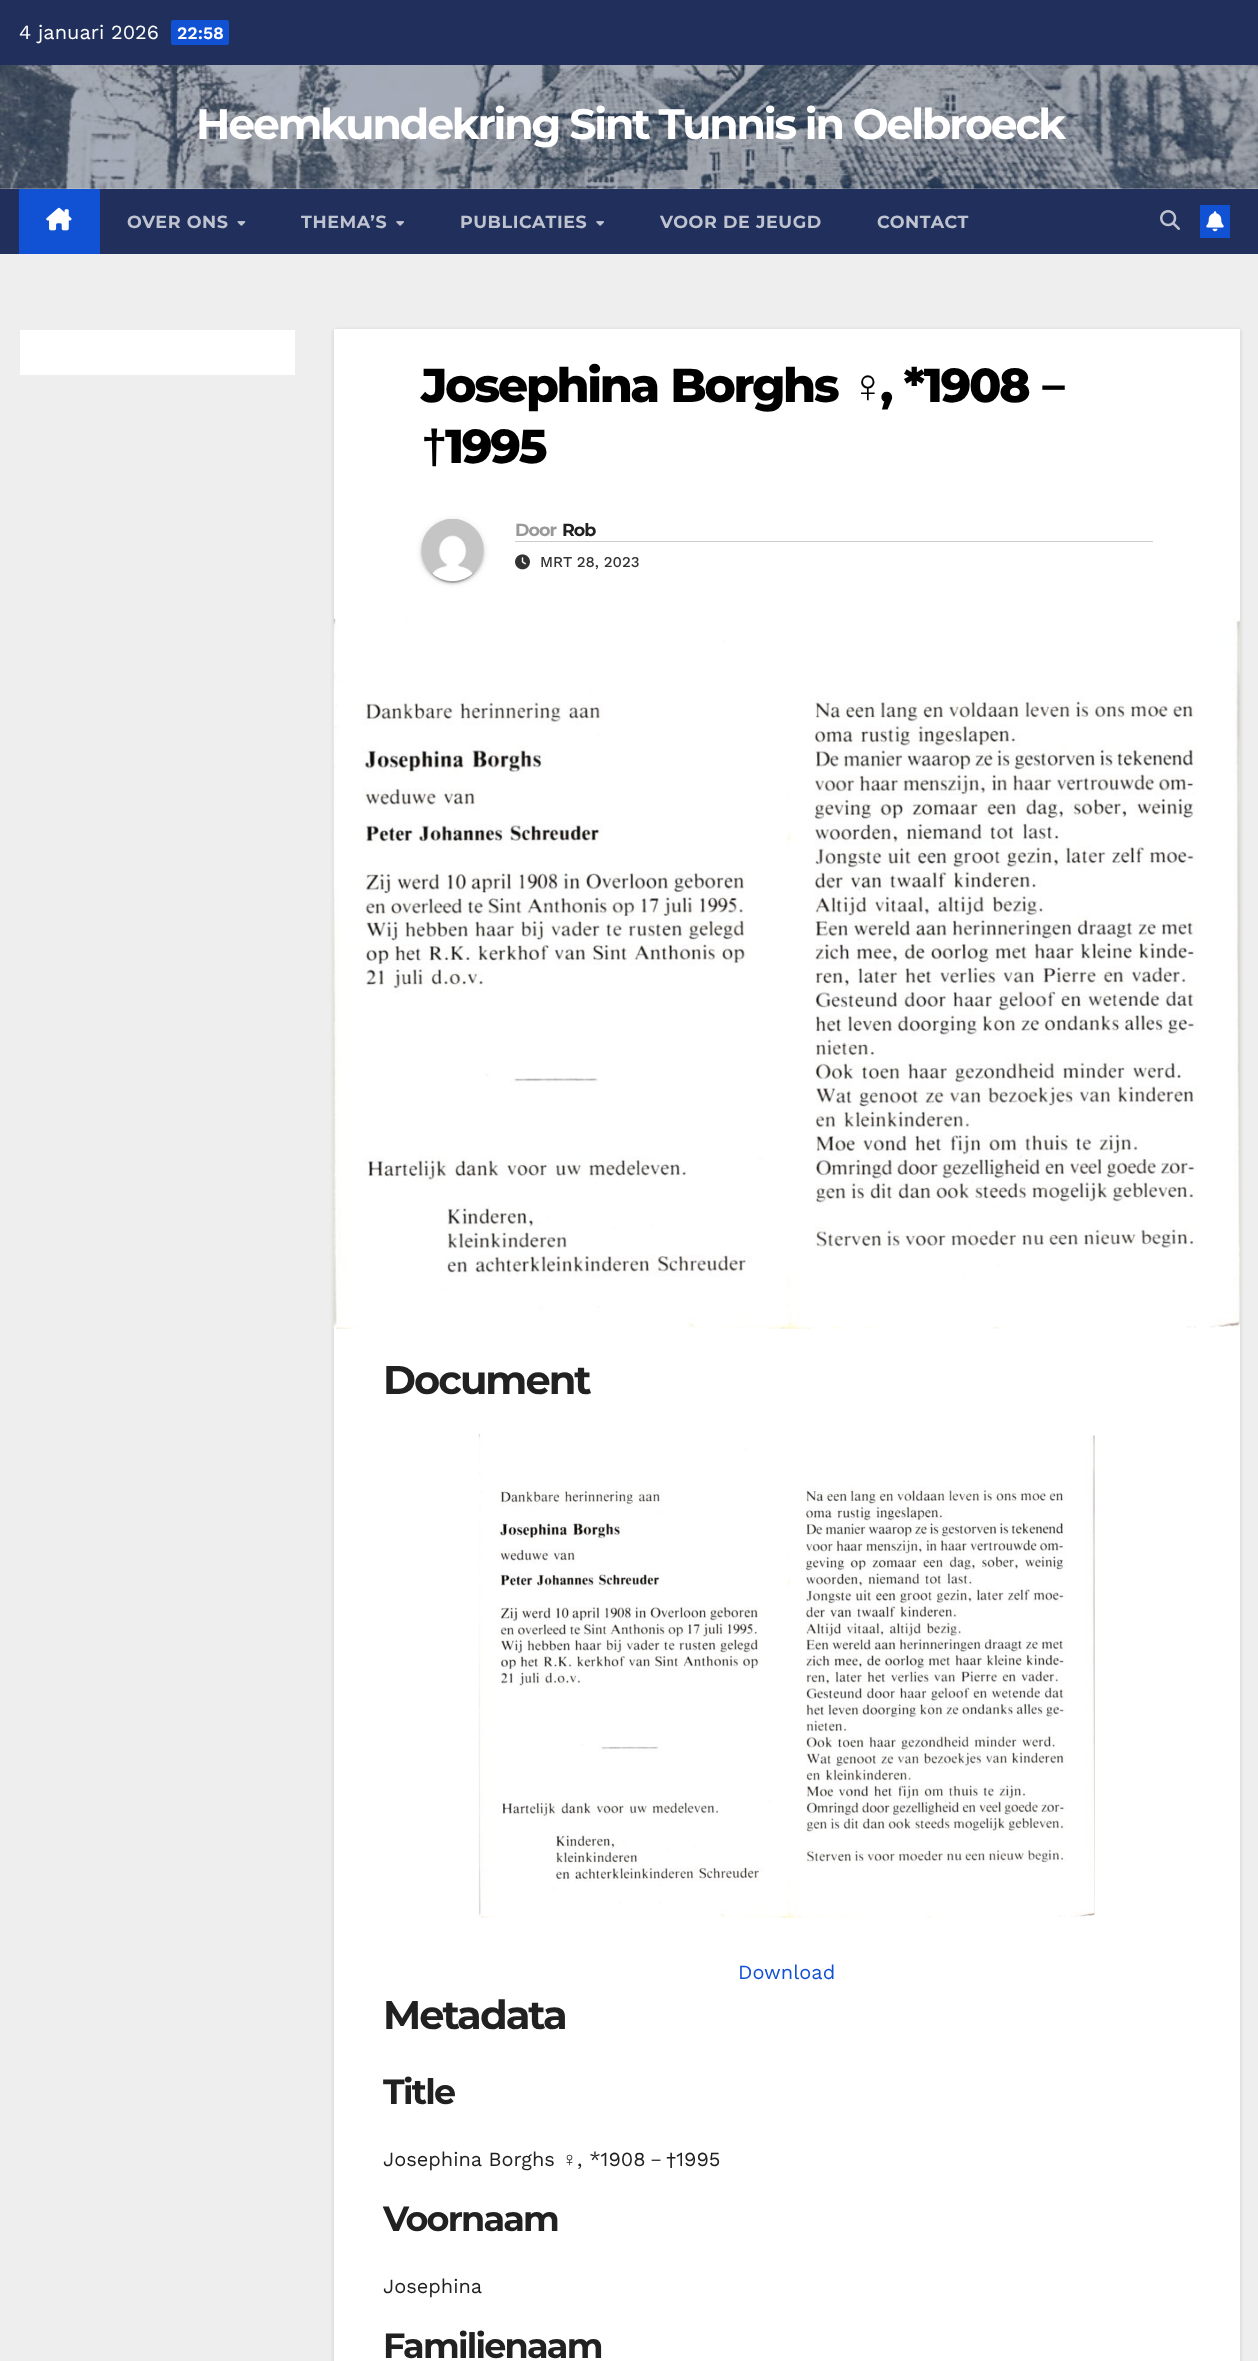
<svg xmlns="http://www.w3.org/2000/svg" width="1258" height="2361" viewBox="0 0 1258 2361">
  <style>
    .t1 { font: 20px Work Sans; fill: #fff; }
    .t2 { font: 600 17.5px Work Sans; fill: #fff; }
    .t3 { font: bold 42.5px Montserrat; letter-spacing: -2.1px; fill: #fff; }
    .t4 { font: bold 17.5px Montserrat; letter-spacing: 0.6px; fill: #bec3cf; }
    .t5 { font: 800 47.5px Montserrat; letter-spacing: -2.4px; fill: #000; }
    .t6 { font: bold 47.5px Liberation Sans; letter-spacing: -2.4px; fill: #000; }
    .t7 { font: bold 47.5px WenQuanYi Zen Hei; letter-spacing: -2.4px; fill: #000; }
    .t8 { font: bold 17.5px Montserrat; letter-spacing: -1px; fill: #999; }
    .t9 { font: bold 17.5px Montserrat; letter-spacing: -1px; fill: #212121; }
    .t10 { font: 500 15px Work Sans; fill: #333; }
    .t11 { font: bold 40px Montserrat; letter-spacing: -2px; fill: #212121; }
    .t12 { font: 20px Work Sans; fill: #1151d3; }
    .t13 { font: bold 35px Montserrat; letter-spacing: -1.75px; fill: #212121; }
    .t14 { font: 20px Work Sans; fill: #212121; }
    .t15 { font: 20px Liberation Sans; fill: #212121; }
    .t16 { font: 500 20px WenQuanYi Zen Hei; fill: #212121; }
  </style>
  <rect width="100%" height="100%" fill="#eee"/>
  <rect x="0" y="0" width="1258" height="65" fill="#202f5b"/>
  <text x="19" y="39" class="t1">4 januari 2026</text>
  <rect x="171" y="20" width="58" height="25" rx="2.5" fill="#1151d3"/>
  <text x="177" y="39" class="t2">22:58</text>
  <image x="0" y="65" width="1258" height="124" href="images/1.png"/>
  <text x="196" y="139" class="t3">Heemkundekring Sint Tunnis in Oelbroeck</text>
  <rect x="0" y="189" width="1258" height="65" fill="#202f5b"/>
  <rect x="19" y="189" width="81" height="65" fill="#1151d3"/>
  <image x="46" y="207" width="26" height="24" href="images/2.png"/>
  <text x="127" y="228" class="t4">OVER ONS</text>
  <image x="237" y="221" width="9" height="5" href="images/3.png"/>
  <text x="301" y="228" class="t4">THEMA’S</text>
  <image x="396" y="221" width="8" height="5" href="images/4.png"/>
  <text x="460" y="228" class="t4">PUBLICATIES</text>
  <image x="596" y="221" width="8" height="5" href="images/4.png"/>
  <text x="660" y="228" class="t4">VOOR DE JEUGD</text>
  <text x="877" y="228" class="t4">CONTACT</text>
  <image x="1160" y="210" width="20" height="20" href="images/5.png"/>
  <rect x="1200" y="205" width="30" height="33" fill="#1151d3"/>
  <image x="1206" y="211" width="18" height="21" href="images/6.png"/>
  <rect x="20" y="330" width="275" height="45" fill="#fff"/>
  <rect x="334" y="330" width="906" height="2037" fill="#00000026" filter="blur(2px)"/>
  <rect x="334" y="329" width="906" height="2032" fill="#fff"/>
  <text x="421" y="402" word-spacing="1" class="t5">Josephina Borghs</text>
  <text x="850" y="402" class="t6">♀︎</text>
  <text x="880" y="402" word-spacing="1" class="t5">, *1908</text>
  <text x="1029" y="402" class="t7">－</text>
  <text x="421" y="463" class="t6">†</text>
  <text x="445" y="463" class="t5">1995</text>
  <rect x="421" y="520" width="63" height="63" rx="31.5" fill="#0000001f" filter="blur(3px)"/>
  <rect x="424" y="525" width="57" height="58" rx="28.5" fill="#00000033" filter="blur(0.5px)"/>
  <rect x="421" y="521" width="63" height="63" rx="31.5" fill="#00000024" filter="blur(1px)"/>
  <image x="421" y="519" width="63" height="63" href="images/7.png"/>
  <rect x="515" y="541" width="638" height="1" fill="#ccc"/>
  <text x="515" y="536" class="t8">Door</text>
  <text x="562" y="536" class="t9">Rob</text>
  <image x="515" y="554" width="15" height="16" href="images/8.png"/>
  <text x="540" y="567" class="t10">MRT 28, 2023</text>
  <image x="333" y="618" width="907" height="711" href="images/9.png"/>
  <text x="383" y="1394" class="t11">Document</text>
  <image x="478" y="1434" width="617" height="484" href="images/10.png"/>
  <text x="738" y="1979" class="t12">Download</text>
  <text x="383" y="2029" class="t11">Metadata</text>
  <text x="383" y="2104" class="t13">Title</text>
  <text x="383" y="2166" class="t14">Josephina Borghs</text>
  <text x="562" y="2166" class="t15">♀︎</text>
  <text x="577" y="2166" class="t14">, *1908</text>
  <text x="646" y="2166" class="t16">－</text>
  <text x="666" y="2166" class="t14">†1995</text>
  <text x="383" y="2231" class="t13">Voornaam</text>
  <text x="383" y="2293" class="t14">Josephina</text>
  <text x="383" y="2358" class="t13">Familienaam</text>
</svg>
